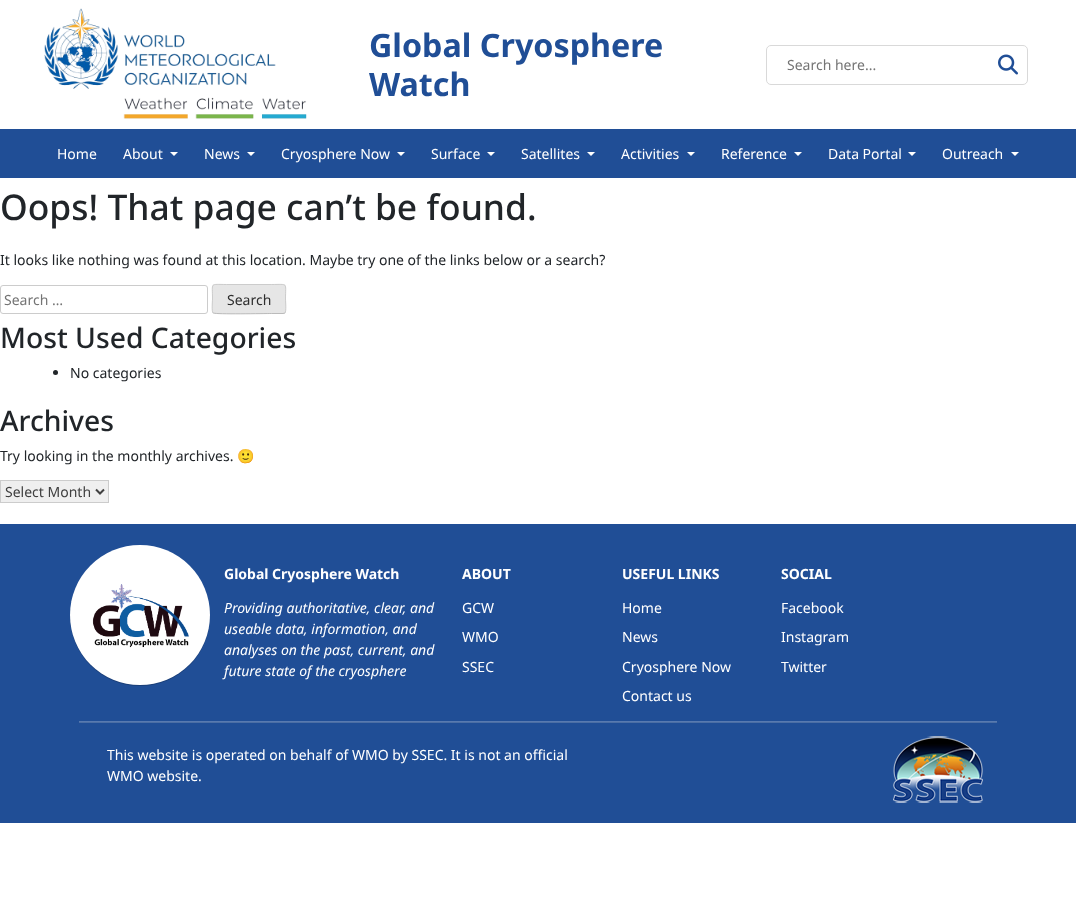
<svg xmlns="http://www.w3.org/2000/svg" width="1076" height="907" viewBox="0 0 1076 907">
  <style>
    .t1 { font: bold 32.25px Noto Sans; fill: #204e96; }
    .t2 { font: 14px Noto Sans; fill: #757575; }
    .t3 { font: 14px Noto Sans; fill: #fff; }
    .t4 { font: 500 35.4px Noto Sans; fill: #212529; }
    .t5 { font: 14px Noto Sans; fill: #212529; }
    .t6 { font: 14px Noto Sans; fill: #2e2e2e; }
    .t7 { font: 500 28.25px Noto Sans; fill: #212529; }
    .t8 { font: 14px Noto Color Emoji; fill: #212529; }
    .t9 { font: 14px Noto Sans; fill: #404040; }
    .t10 { font: bold 14px Noto Sans; fill: #fff; }
    .t11 { font: italic 14px Noto Sans; fill: #fff; }
  </style>
  <rect width="100%" height="100%" fill="#fff"/>
  <image x="44" y="8" width="263" height="111" href="images/1.png"/>
  <text x="369" y="57" class="t1">Global Cryosphere</text>
  <text x="369" y="96" class="t1">Watch</text>
  <rect x="766.5" y="45.5" width="261" height="39" rx="4.5" fill="none" stroke="#d9d9d9"/>
  <text x="787" y="70" class="t2">Search here...</text>
  <image x="998" y="54" width="20" height="21" href="images/2.png"/>
  <rect x="0" y="129" width="1076" height="49" fill="#204e96"/>
  <text x="57" y="159" class="t3">Home</text>
  <text x="123" y="159" class="t3">About</text>
  <path d="M170 152H178L174 156Z" fill="#fff"/>
  <text x="204" y="159" class="t3">News</text>
  <path d="M247 152H255L251 156Z" fill="#fff"/>
  <text x="281" y="159" class="t3">Cryosphere Now</text>
  <path d="M397 152H405L401 156Z" fill="#fff"/>
  <text x="431" y="159" class="t3">Surface</text>
  <path d="M487 152H495L491 156Z" fill="#fff"/>
  <text x="521" y="159" class="t3">Satellites</text>
  <path d="M587 152H595L591 156Z" fill="#fff"/>
  <text x="621" y="159" class="t3">Activities</text>
  <path d="M687 152H695L691 156Z" fill="#fff"/>
  <text x="721" y="159" class="t3">Reference</text>
  <path d="M794 152H802L798 156Z" fill="#fff"/>
  <text x="828" y="159" class="t3">Data Portal</text>
  <path d="M908 152H916L912 156Z" fill="#fff"/>
  <text x="942" y="159" class="t3">Outreach</text>
  <path d="M1011 152H1019L1015 156Z" fill="#fff"/>
  <text x="0" y="220" class="t4">Oops! That page can’t be found.</text>
  <text x="0" y="265" class="t5">It looks like nothing was found at this location. Maybe try one of the links below or a search?</text>
  <rect x="0.5" y="285.5" width="207" height="28" rx="2.5" fill="none" stroke="#ccc"/>
  <text x="4" y="305" class="t2">Search …</text>
  <rect x="212" y="284" width="74" height="30" rx="3" fill="#e6e6e6"/>
  <path d="M285 313L283 313.5H271.5C265 313.5 215.5 314.5 213.5 313H213" fill="none" stroke="#bbb"/>
  <path d="M213 313C211.5 311 212.5 301.5 212.5 299C212.5 282 209.5 284.5 226.5 284.5H271.5C288.5 284.5 285.5 282 285.5 299C285.5 301.5 286.5 311 285 313" fill="none" stroke="#ccc"/>
  <text x="227" y="305" class="t6">Search</text>
  <text x="0" y="348" class="t7">Most Used Categories</text>
  <circle cx="55.5" cy="372.5" r="2.5" fill="#212529"/>
  <text x="70" y="378" class="t5">No categories</text>
  <text x="0" y="431" class="t7">Archives</text>
  <text x="0" y="461" class="t5">Try looking in the monthly archives.</text>
  <text x="237" y="461" class="t8">🙂</text>
  <rect x="0.5" y="480.5" width="108" height="22" fill="#efefef" stroke="#ccc"/>
  <path d="M96 489.5L100 493.5L104 489.5" fill="none" stroke="#404040" stroke-width="2"/>
  <text x="5" y="497" class="t9">Select Month</text>
  <rect x="0" y="524" width="1076" height="299" fill="#204e96"/>
  <rect x="70" y="546" width="140" height="140" rx="70" fill="#00000033" filter="blur(0.5px)"/>
  <circle cx="140" cy="615" r="70" fill="#fff"/>
  <image x="92" y="584" width="97" height="64" href="images/3.png"/>
  <text x="224" y="579" class="t10">Global Cryosphere Watch</text>
  <text x="224" y="613" class="t11">Providing authoritative, clear, and</text>
  <text x="224" y="634" class="t11">useable data, information, and</text>
  <text x="224" y="655" class="t11">analyses on the past, current, and</text>
  <text x="224" y="676" class="t11">future state of the cryosphere</text>
  <text x="462" y="579" class="t10">ABOUT</text>
  <text x="462" y="613" class="t3">GCW</text>
  <text x="462" y="642" class="t3">WMO</text>
  <text x="462" y="672" class="t3">SSEC</text>
  <text x="622" y="579" class="t10">USEFUL LINKS</text>
  <text x="622" y="613" class="t3">Home</text>
  <text x="622" y="642" class="t3">News</text>
  <text x="622" y="672" class="t3">Cryosphere Now</text>
  <text x="622" y="701" class="t3">Contact us</text>
  <text x="781" y="579" class="t10">SOCIAL</text>
  <text x="781" y="613" class="t3">Facebook</text>
  <text x="781" y="642" class="t3">Instagram</text>
  <text x="781" y="672" class="t3">Twitter</text>
  <rect x="79" y="722" width="918" height="1" fill="#4b6ea4"/>
  <rect x="79" y="721" width="918" height="1" fill="#587ab0"/>
  <text x="107" y="760" class="t3">This website is operated on behalf of WMO by SSEC. It is not an official</text>
  <text x="107" y="781" class="t3">WMO website.</text>
  <image x="893" y="736" width="90" height="67" href="images/4.png"/>
</svg>
